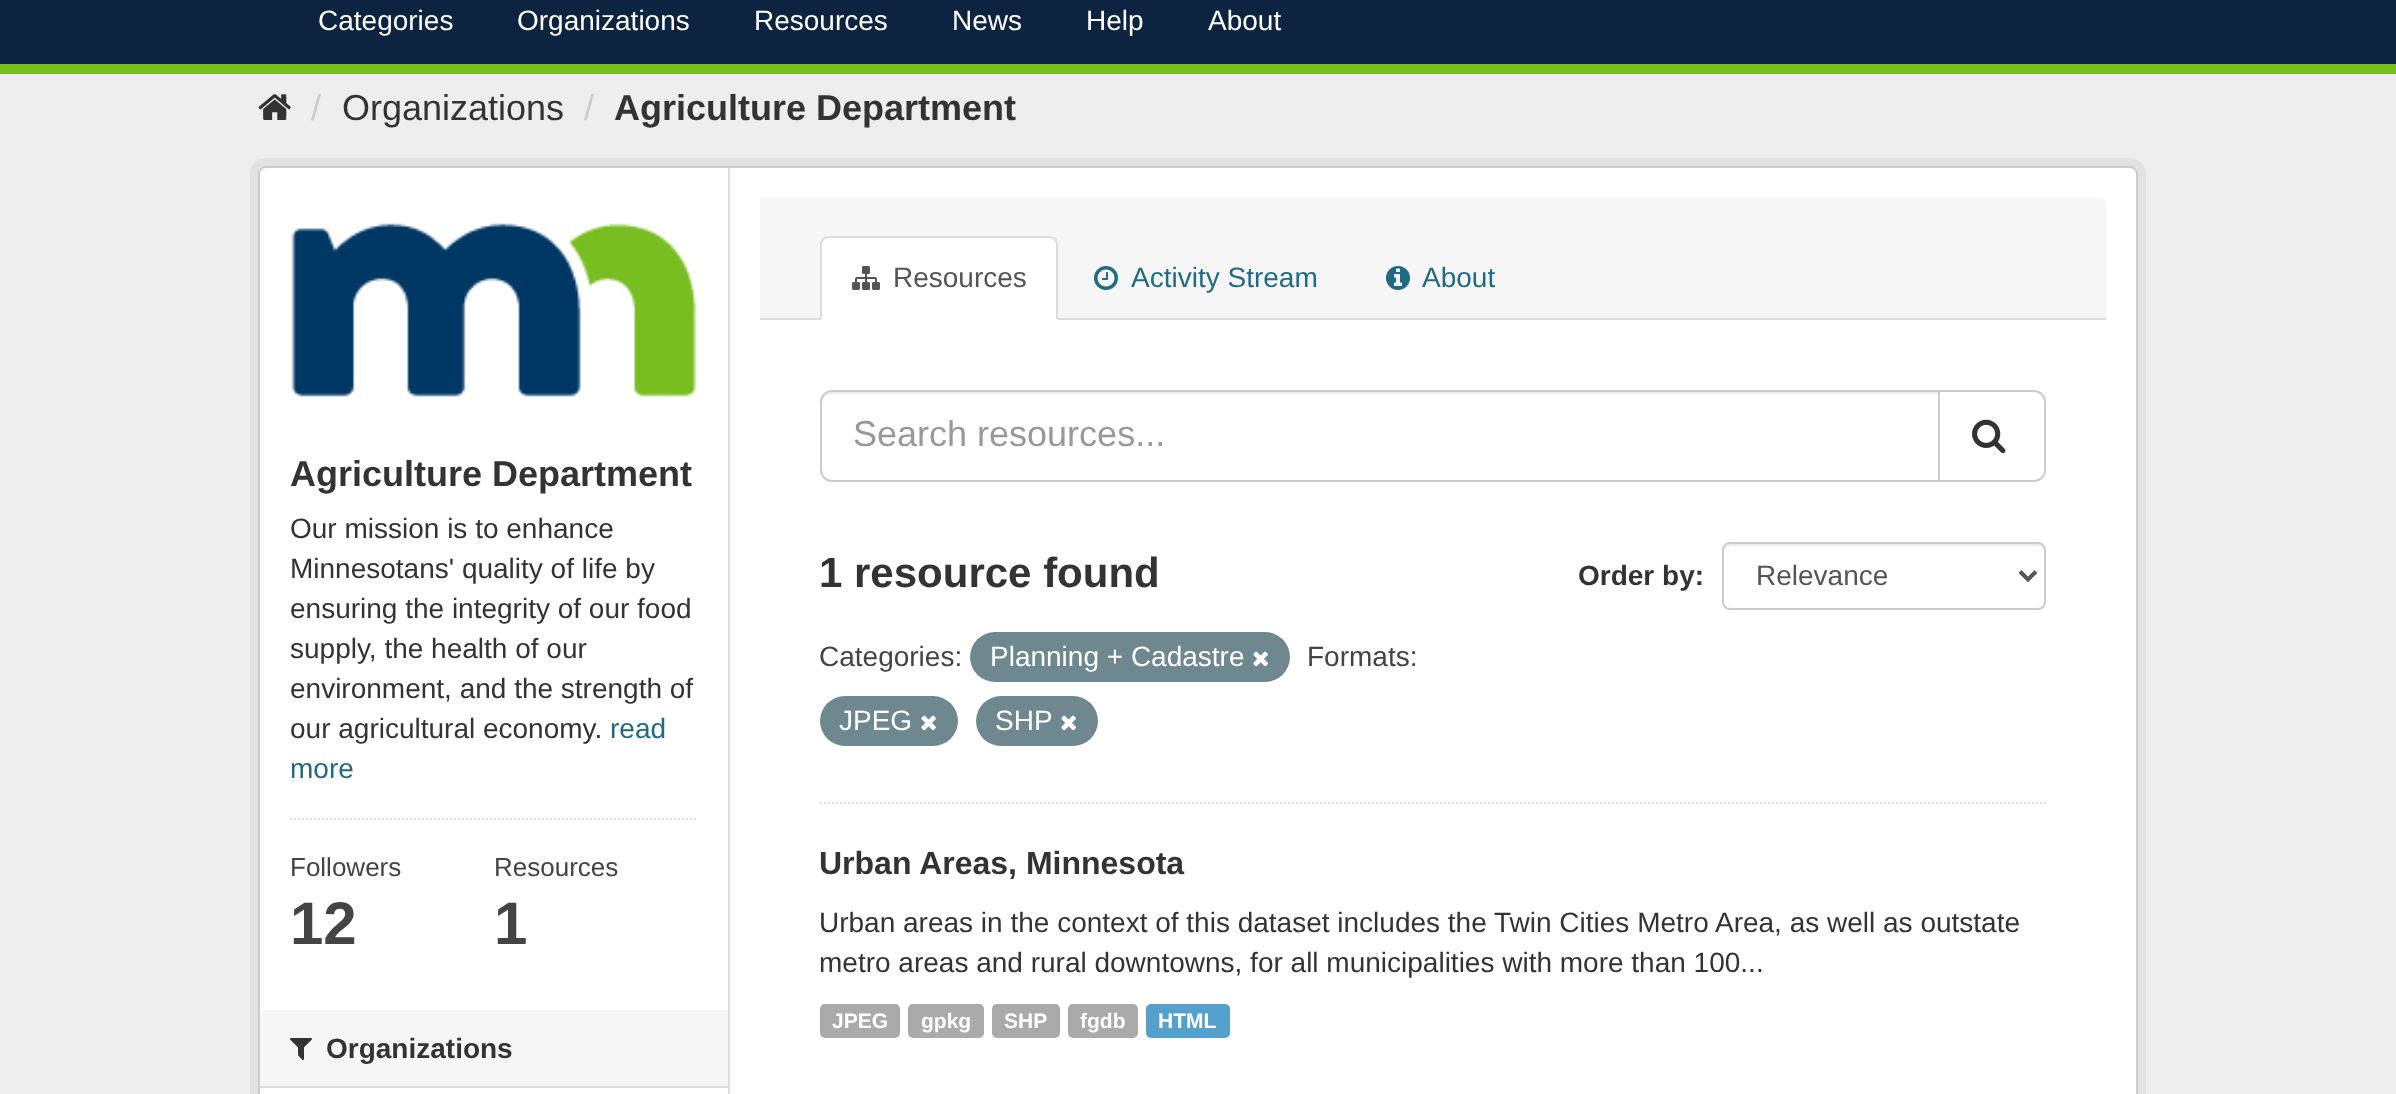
<svg xmlns="http://www.w3.org/2000/svg" width="2396" height="1094" viewBox="0 0 2396 1094">
  <style>
    .t1 { font: 28px Liberation Sans; fill: #fff; }
    .t2 { font: 36px Liberation Sans; fill: #ccc; }
    .t3 { font: 36px Liberation Sans; fill: #333; }
    .t4 { font: bold 36px Liberation Sans; fill: #333; }
    .t5 { font: 28px Liberation Sans; fill: #333; }
    .t6 { font: 28px Liberation Sans; fill: #206b82; }
    .t7 { font: 26px Liberation Sans; fill: #444; }
    .t8 { font: bold 60px Liberation Sans; fill: #444; }
    .t9 { font: bold 28px Liberation Sans; fill: #333; }
    .t10 { font: 28px Liberation Sans; fill: #555; }
    .t11 { font: 36px Liberation Sans; fill: #999; }
    .t12 { font: bold 42px Liberation Sans; fill: #333; }
    .t13 { font: 28px Liberation Sans; fill: #444; }
    .t14 { font: bold 32px Liberation Sans; fill: #333; }
    .t15 { font: bold 21px Liberation Sans; fill: #fff; }
  </style>
  <rect width="100%" height="100%" fill="#0c243f"/>
  <rect x="0" y="64" width="2396" height="10" fill="#78be21"/>
  <text x="318" y="30" class="t1">Categories</text>
  <text x="517" y="30" class="t1">Organizations</text>
  <text x="754" y="30" class="t1">Resources</text>
  <text x="952" y="30" class="t1">News</text>
  <text x="1086" y="30" class="t1">Help</text>
  <text x="1208" y="30" class="t1">About</text>
  <rect x="0" y="74" width="2396" height="1020" fill="#eee"/>
  <image x="258" y="94" width="33" height="26" href="images/1.png"/>
  <text x="311" y="120" class="t2">/</text>
  <text x="342" y="120" class="t3">Organizations</text>
  <text x="584" y="120" class="t2">/</text>
  <text x="614" y="120" class="t4">Agriculture Department</text>
  <rect x="254" y="162" width="1888" height="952" rx="12" fill="none" stroke="#e2e2e2" stroke-width="8"/>
  <rect x="259" y="167" width="1878" height="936" rx="7" fill="#fff" stroke="#ccc" stroke-width="2"/>
  <image x="291" y="223" width="406" height="179" href="images/2.png"/>
  <text x="290" y="486" class="t4">Agriculture Department</text>
  <text x="290" y="538" class="t5">Our mission is to enhance</text>
  <text x="290" y="578" class="t5">Minnesotans' quality of life by</text>
  <text x="290" y="618" class="t5">ensuring the integrity of our food</text>
  <text x="290" y="658" class="t5">supply, the health of our</text>
  <text x="290" y="698" class="t5">environment, and the strength of</text>
  <text x="290" y="738" class="t5">our agricultural economy.</text>
  <text x="610" y="738" class="t6">read</text>
  <text x="290" y="778" class="t6">more</text>
  <path d="M290 819H698" fill="none" stroke="#ddd" stroke-width="2" stroke-dasharray="2 2"/>
  <text x="290" y="876" class="t7">Followers</text>
  <text x="290" y="944" class="t8">12</text>
  <text x="494" y="876" class="t7">Resources</text>
  <text x="494" y="944" class="t8">1</text>
  <path d="M266 1010H728V1088H260V1016C260 1012.5 262.5 1010 266 1010Z" fill="#f6f6f6"/>
  <rect x="260" y="1086" width="468" height="2" fill="#ddd"/>
  <image x="290" y="1038" width="22" height="22" href="images/3.png"/>
  <text x="326" y="1058" class="t9">Organizations</text>
  <rect x="728" y="168" width="2" height="926" fill="#ddd"/>
  <path d="M760 198H2100C2103.5 198 2106 200.5 2106 204V320H760Z" fill="#f6f6f6"/>
  <rect x="760" y="318" width="1346" height="2" fill="#ddd"/>
  <path d="M828 236H1050C1054.5 236 1058 239.5 1058 244V320H820V244C820 239.5 823.5 236 828 236Z" fill="#fff"/>
  <path d="M828 236C826 236 824 237 822 238L824 240C825 239 826 238 828 238H1050C1052 238 1053 239 1054 240L1056 238C1054 237 1052 236 1050 236Z" fill="#ddd"/>
  <path d="M1058 320V244C1058 242 1057 240 1056 238L1054 240L1056 243V318Z" fill="#ddd"/>
  <path d="M820 320L822 318V243L824 240L822 238C821 240 820 242 820 244Z" fill="#ddd"/>
  <image x="852" y="266" width="28" height="24" href="images/4.png"/>
  <text x="893" y="287" class="t10">Resources</text>
  <image x="1094" y="266" width="24" height="24" href="images/5.png"/>
  <text x="1131" y="287" class="t6">Activity Stream</text>
  <image x="1386" y="266" width="24" height="24" href="images/6.png"/>
  <text x="1422" y="287" class="t6">About</text>
  <path d="M820 803H2046" fill="none" stroke="#ddd" stroke-width="2" stroke-dasharray="2 2"/>
  <path d="M832 394H1938V392H832C825 392 822 398 822 404C822 398 826 394 832 394Z" fill="#ececec"/>
  <path d="M832 391H1939V481H832C826 481 821 476 821 470V402C821 396 826 391 832 391Z" fill="none" stroke="#ccc" stroke-width="2"/>
  <text x="853" y="446" class="t11">Search resources...</text>
  <path d="M1939 391H2034C2040 391 2045 396 2045 402V470C2045 476 2040 481 2034 481H1939Z" fill="#fff" stroke="#ccc" stroke-width="2"/>
  <image x="1972" y="419" width="34" height="35" href="images/7.png"/>
  <text x="819" y="587" class="t12">1 resource found</text>
  <text x="1578" y="585" class="t9">Order by:</text>
  <path d="M1730 546H2038C2041 546 2044 549 2044 552C2044 548 2043 544 2038 544H1729C1725 545 1724 549 1724 552C1724 549 1727 546 1730 546Z" fill="#ececec"/>
  <rect x="1723" y="543" width="322" height="66" rx="7" fill="none" stroke="#ccc" stroke-width="2"/>
  <path d="M2020 571.5L2028 579.5L2036 571.5" fill="none" stroke="#555" stroke-width="4"/>
  <text x="1756" y="585" class="t10">Relevance</text>
  <text x="819" y="666" class="t13">Categories:</text>
  <rect x="970" y="632" width="320" height="50" rx="25" fill="#6f8890"/>
  <text x="990" y="666" class="t1">Planning + Cadastre</text>
  <image x="1253" y="651" width="15" height="16" href="images/8.png"/>
  <text x="1307" y="666" class="t13">Formats:</text>
  <rect x="820" y="696" width="138" height="50" rx="25" fill="#6f8890"/>
  <text x="839" y="730" class="t1">JPEG</text>
  <image x="921" y="715" width="15" height="16" href="images/8.png"/>
  <rect x="976" y="696" width="122" height="50" rx="25" fill="#6f8890"/>
  <text x="995" y="730" class="t1">SHP</text>
  <image x="1061" y="715" width="15" height="16" href="images/8.png"/>
  <text x="819" y="874" class="t14">Urban Areas, Minnesota</text>
  <text x="819" y="932" class="t5">Urban areas in the context of this dataset includes the Twin Cities Metro Area, as well as outstate</text>
  <text x="819" y="972" class="t5">metro areas and rural downtowns, for all municipalities with more than 100...</text>
  <rect x="820" y="1004" width="80" height="34" rx="5" fill="#aaa"/>
  <text x="832" y="1028" class="t15">JPEG</text>
  <rect x="908" y="1004" width="76" height="34" rx="5" fill="#aaa"/>
  <text x="921" y="1028" class="t15">gpkg</text>
  <rect x="992" y="1004" width="68" height="34" rx="5" fill="#aaa"/>
  <text x="1004" y="1028" class="t15">SHP</text>
  <rect x="1068" y="1004" width="70" height="34" rx="5" fill="#aaa"/>
  <text x="1080" y="1028" class="t15">fgdb</text>
  <rect x="1146" y="1004" width="84" height="34" rx="5" fill="#55a1ce"/>
  <text x="1158" y="1028" class="t15">HTML</text>
</svg>
